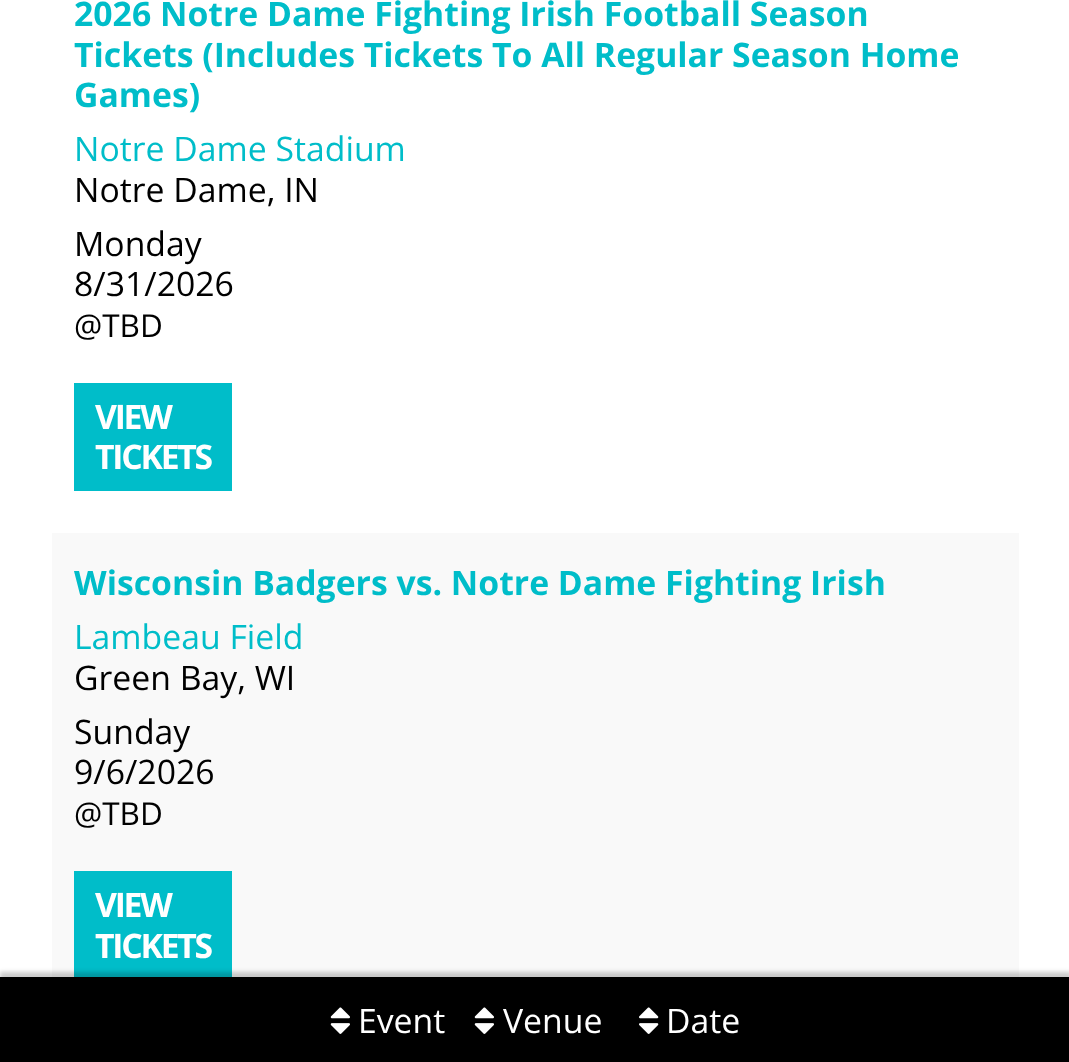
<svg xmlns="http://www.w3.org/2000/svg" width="1069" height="1062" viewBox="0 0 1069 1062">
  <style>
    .t1 { font: bold 33.75px Open Sans; fill: #00bdc9; }
    .t2 { font: 33.75px Open Sans; fill: #00bdc9; }
    .t3 { font: 33.75px Open Sans; fill: #000; }
    .t4 { font: 31.5px Open Sans; fill: #000; }
    .t5 { font: bold 33.75px Open Sans; letter-spacing: -2.25px; fill: #fff; }
    .t6 { font: 33.75px Open Sans; fill: #fff; }
  </style>
  <rect width="100%" height="100%" fill="#fff"/>
  <text x="74" y="26" class="t1">2026 Notre Dame Fighting Irish Football Season</text>
  <text x="74" y="67" class="t1">Tickets (Includes Tickets To All Regular Season Home</text>
  <text x="74" y="107" class="t1">Games)</text>
  <text x="74" y="161" class="t2">Notre Dame Stadium</text>
  <text x="74" y="202" class="t3">Notre Dame, IN</text>
  <text x="74" y="256" class="t3">Monday</text>
  <text x="74" y="296" class="t3">8/31/2026</text>
  <text x="74" y="337" class="t4">@TBD</text>
  <rect x="74" y="383" width="158" height="108" fill="#00bdc9"/>
  <text x="95" y="429" class="t5">VIEW</text>
  <text x="95" y="469" class="t5">TICKETS</text>
  <rect x="52" y="533" width="967" height="444" fill="#f9f9f9"/>
  <text x="74" y="595" class="t1">Wisconsin Badgers vs. Notre Dame Fighting Irish</text>
  <text x="74" y="649" class="t2">Lambeau Field</text>
  <text x="74" y="690" class="t3">Green Bay, WI</text>
  <text x="74" y="744" class="t3">Sunday</text>
  <text x="74" y="784" class="t3">9/6/2026</text>
  <text x="74" y="825" class="t4">@TBD</text>
  <rect x="74" y="871" width="158" height="106" fill="#00bdc9"/>
  <text x="95" y="917" class="t5">VIEW</text>
  <text x="95" y="958" class="t5">TICKETS</text>
  <rect x="0" y="972" width="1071" height="86" fill="#00000033" filter="blur(2px)"/>
  <rect x="0" y="977" width="1069" height="85" fill="#000"/>
  <image x="330" y="1007" width="20" height="27" href="images/1.png"/>
  <text x="358" y="1033" class="t6">Event</text>
  <image x="474" y="1007" width="20" height="27" href="images/1.png"/>
  <text x="503" y="1033" class="t6">Venue</text>
  <image x="639" y="1007" width="20" height="27" href="images/2.png"/>
  <text x="666" y="1033" class="t6">Date</text>
</svg>
